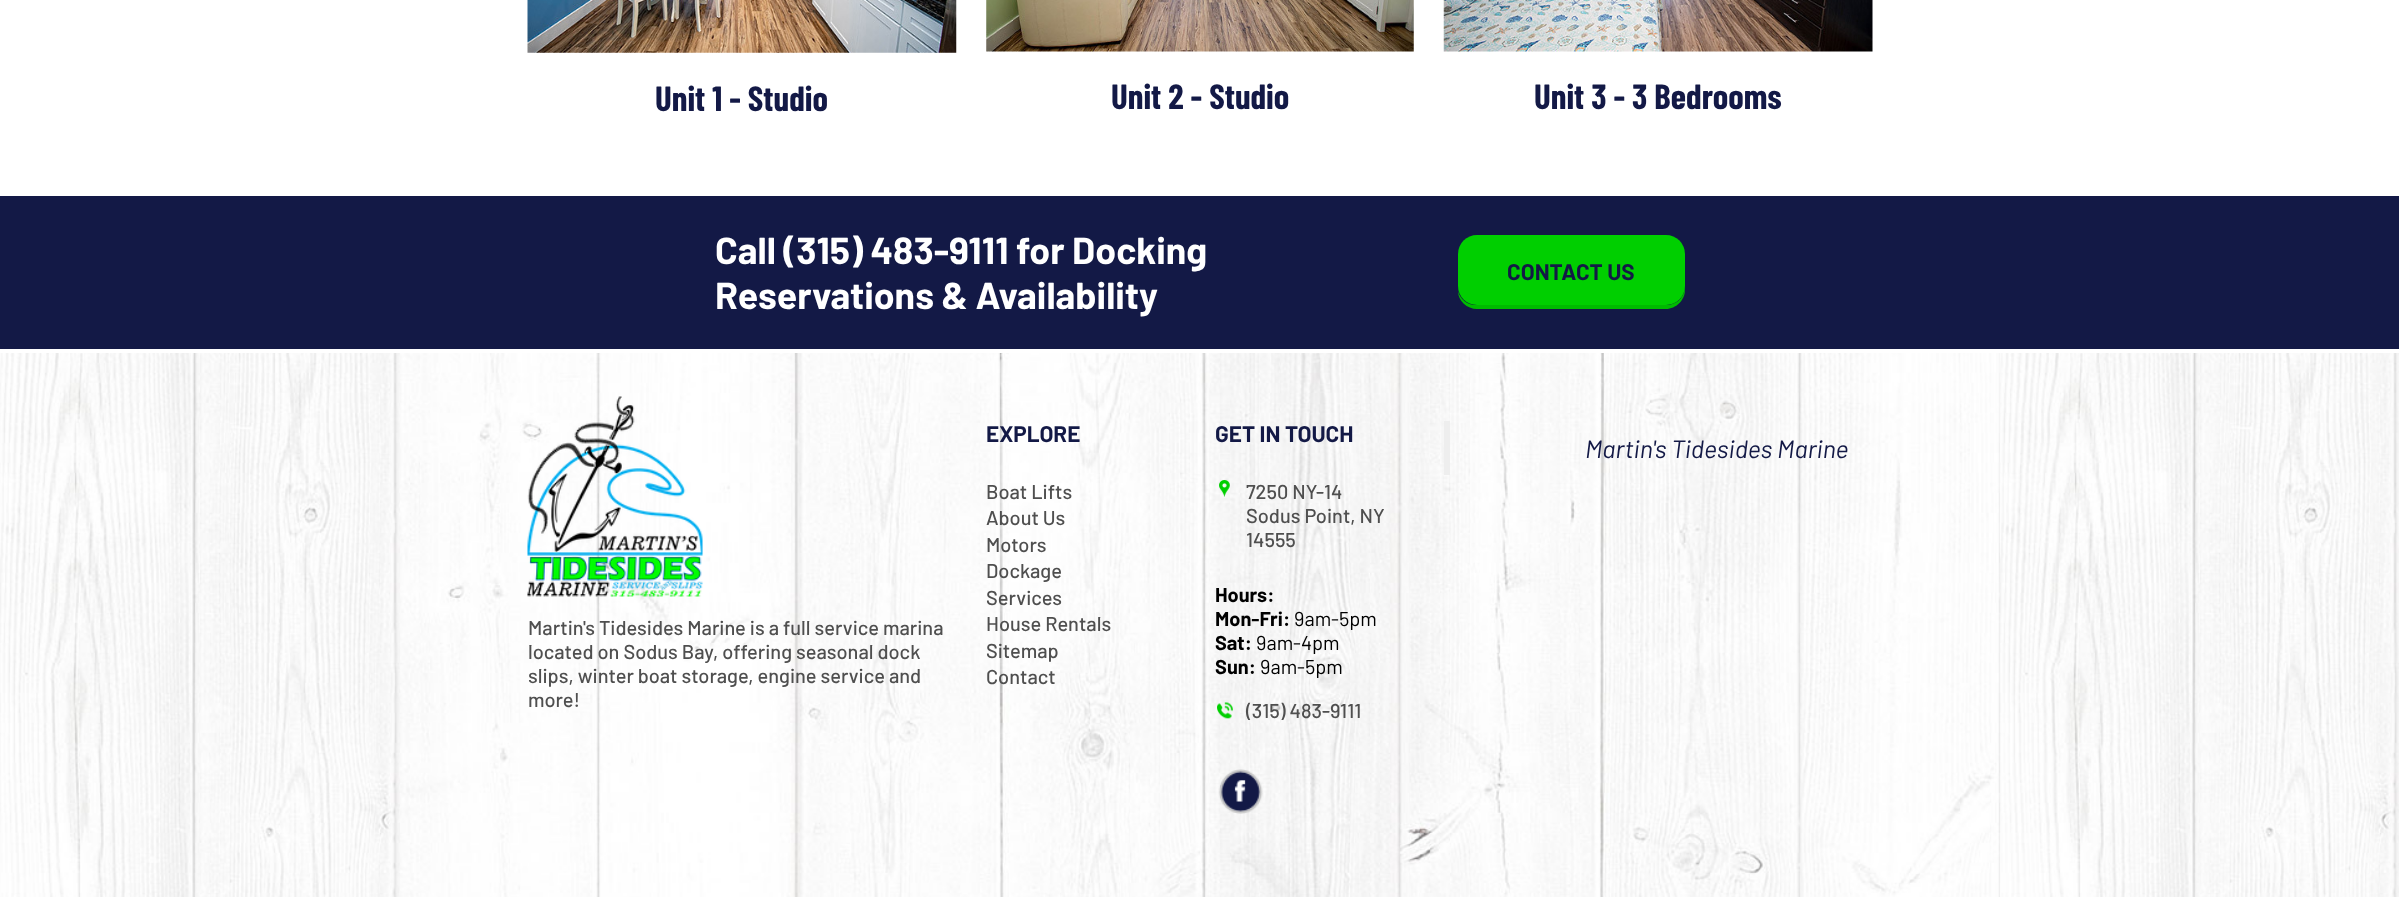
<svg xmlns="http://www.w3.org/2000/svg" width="2399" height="897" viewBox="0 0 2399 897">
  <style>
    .t1 { font: bold 35px Barlow Condensed; fill: #131946; }
    .t2 { font: bold 37.5px Barlow; fill: #fff; }
    .t3 { font: bold 22.5px Barlow; fill: #131946; }
    .t4 { font: 500 20px Barlow; fill: #4f4f4f; }
    .t5 { font: bold 20px Barlow; fill: #000; }
    .t6 { font: 20px Barlow; fill: #000; }
    .t7 { font: italic 25px Barlow; fill: #131946; }
  </style>
  <rect width="100%" height="100%" fill="#fff"/>
  <image x="527" y="0" width="430" height="53" href="images/1.png"/>
  <text x="655" y="111" class="t1">Unit 1 - Studio</text>
  <image x="986" y="0" width="428" height="52" href="images/2.png"/>
  <text x="1111" y="109" class="t1">Unit 2 - Studio</text>
  <image x="1443" y="0" width="430" height="52" href="images/3.png"/>
  <text x="1534" y="109" class="t1">Unit 3 - 3 Bedrooms</text>
  <rect x="0" y="196" width="2399" height="153" fill="#131946"/>
  <text x="715" y="264" class="t2">Call (315) 483-9111 for Docking</text>
  <text x="715" y="309" class="t2">Reservations &amp; Availability</text>
  <path d="M1458 291C1458 301 1467 309 1477 309H1666C1676 309 1685 300 1685 290V286C1685 297 1677 305 1666 305H1476C1467 305 1460 299 1458 291Z" fill="#00ba00"/>
  <rect x="1458" y="235" width="227" height="70" rx="19" fill="#00cf00"/>
  <text x="1507" y="280" class="t3">CONTACT US</text>
  <image x="0" y="353" width="2399" height="544" href="images/4.png"/>
  <text x="986" y="442" class="t3">EXPLORE</text>
  <text x="986" y="499" class="t4">Boat Lifts</text>
  <text x="986" y="525" class="t4">About Us</text>
  <text x="986" y="552" class="t4">Motors</text>
  <text x="986" y="578" class="t4">Dockage</text>
  <text x="986" y="605" class="t4">Services</text>
  <text x="986" y="631" class="t4">House Rentals</text>
  <text x="986" y="658" class="t4">Sitemap</text>
  <text x="986" y="684" class="t4">Contact</text>
  <text x="1215" y="442" class="t3">GET IN TOUCH</text>
  <image x="1219" y="480" width="11" height="17" href="images/5.png"/>
  <text x="1246" y="499" class="t4">7250 NY-14</text>
  <text x="1246" y="523" class="t4">Sodus Point, NY</text>
  <text x="1246" y="547" class="t4">14555</text>
  <text x="1215" y="602" class="t5">Hours:</text>
  <text x="1215" y="626" class="t5">Mon-Fri:</text>
  <text x="1294" y="626" class="t6">9am-5pm</text>
  <text x="1215" y="650" class="t5">Sat:</text>
  <text x="1256" y="650" class="t6">9am-4pm</text>
  <text x="1215" y="674" class="t5">Sun:</text>
  <text x="1260" y="674" class="t6">9am-5pm</text>
  <image x="1217" y="702" width="16" height="17" href="images/6.png"/>
  <text x="1246" y="718" class="t4">(315) 483-9111</text>
  <image x="1218" y="769" width="45" height="45" href="images/7.png"/>
  <rect x="1444" y="421" width="6" height="54" fill="#eee"/>
  <text x="1585" y="458" class="t7">Martin's Tidesides Marine</text>
  <image x="527" y="396" width="176" height="201" href="images/8.png"/>
  <text x="528" y="635" class="t4">Martin's Tidesides Marine is a full service marina</text>
  <text x="528" y="659" class="t4">located on Sodus Bay, offering seasonal dock</text>
  <text x="528" y="683" class="t4">slips, winter boat storage, engine service and</text>
  <text x="528" y="707" class="t4">more!</text>
</svg>
